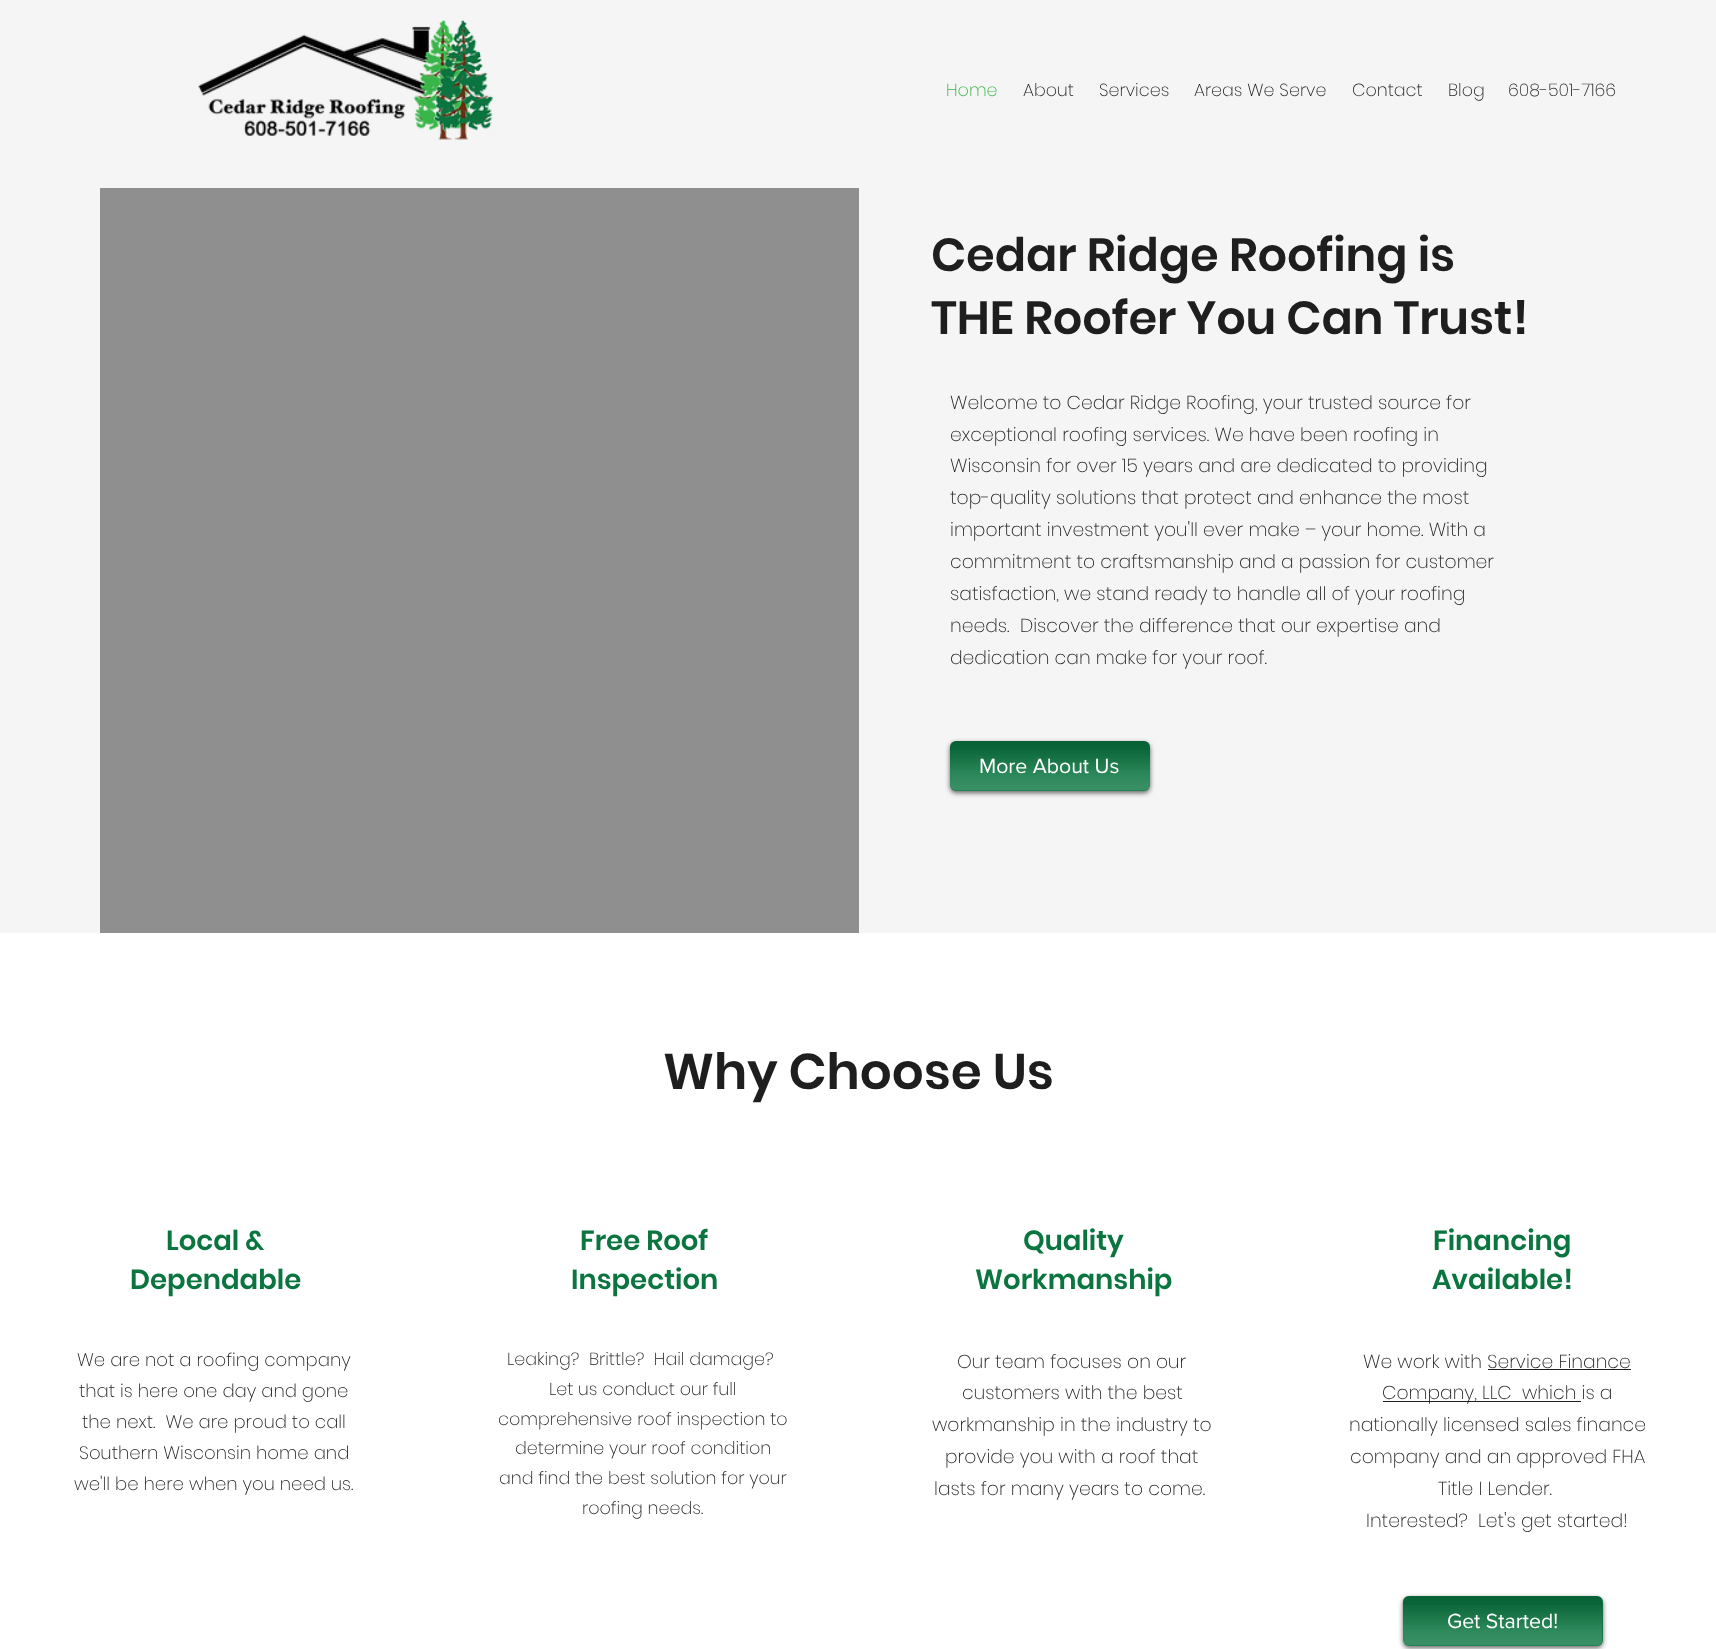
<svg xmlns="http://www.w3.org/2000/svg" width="1716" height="1649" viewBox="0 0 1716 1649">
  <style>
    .t1 { font: 200 17.5px Poppins; fill: #39b54a; }
    .t2 { font: 200 17.5px Poppins; fill: #1e1e1e; }
    .t3 { font: 600 46.25px Poppins; fill: #1e1e1e; }
    .t4 { font: 200 18.75px Poppins; fill: #1e1e1e; }
    .t5 { font: 21.25px 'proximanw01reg'; fill: #fff; }
    .t6 { font: 600 50px Poppins; fill: #1e1e1e; }
    .t7 { font: 600 27.5px Poppins; fill: #0b7540; }
    .t8 { font: 200 18.1px Poppins; fill: #1e1e1e; }
  </style>
  <rect width="100%" height="100%" fill="#f5f5f5"/>
  <image x="198" y="20" width="295" height="120" href="images/1.png"/>
  <text x="946" y="96" class="t1">Home</text>
  <text x="1023" y="96" class="t2">About</text>
  <text x="1099" y="96" class="t2">Services</text>
  <text x="1194" y="96" class="t2">Areas We Serve</text>
  <text x="1352" y="96" class="t2">Contact</text>
  <text x="1448" y="96" class="t2">Blog</text>
  <text x="1508" y="96" class="t2">608-501-7166</text>
  <rect x="100" y="188" width="759" height="745" fill="#8f8f8f"/>
  <text x="931" y="271" class="t3">Cedar Ridge Roofing is</text>
  <text x="931" y="334" class="t3">THE Roofer You Can Trust!</text>
  <text x="950" y="409" class="t4">Welcome to Cedar Ridge Roofing, your trusted source for</text>
  <text x="950" y="441" class="t4">exceptional roofing services. We have been roofing in</text>
  <text x="950" y="472" class="t4">Wisconsin for over 15 years and are dedicated to providing</text>
  <text x="950" y="504" class="t4">top-quality solutions that protect and enhance the most</text>
  <text x="950" y="536" class="t4">important investment you'll ever make – your home. With a</text>
  <text x="950" y="568" class="t4">commitment to craftsmanship and a passion for customer</text>
  <text x="950" y="600" class="t4">satisfaction, we stand ready to handle all of your roofing</text>
  <text x="950" y="632" class="t4" xml:space="preserve">needs.  Discover the difference that our expertise and</text>
  <text x="950" y="664" class="t4">dedication can make for your roof.</text>
  <rect x="950" y="743" width="200" height="50" rx="6" fill="#00000099" filter="blur(2.5px)"/>
  <rect x="950" y="741" width="200" height="50" rx="6" fill="#0b7540"/>
  <image x="950" y="741" width="200" height="29" href="images/2.png"/>
  <image x="950" y="750" width="200" height="41" href="images/3.png"/>
  <text x="979" y="773" class="t5">More About Us</text>
  <rect x="0" y="933" width="1716" height="716" fill="#fff"/>
  <text x="663" y="1089" class="t6">Why Choose Us</text>
  <text x="166" y="1250" class="t7">Local &amp;</text>
  <text x="130" y="1289" class="t7">Dependable</text>
  <text x="77" y="1366" class="t8">We are not a roofing company</text>
  <text x="79" y="1397" class="t8">that is here one day and gone</text>
  <text x="82" y="1428" class="t8" xml:space="preserve">the next.  We are proud to call</text>
  <text x="79" y="1459" class="t8">Southern Wisconsin home and</text>
  <text x="74" y="1490" class="t8">we'll be here when you need us.</text>
  <text x="580" y="1250" class="t7">Free Roof</text>
  <text x="571" y="1289" class="t7">Inspection</text>
  <text x="507" y="1365" class="t2" xml:space="preserve">Leaking?  Brittle?  Hail damage?</text>
  <text x="549" y="1395" class="t2">Let us conduct our full</text>
  <text x="498" y="1425" class="t2">comprehensive roof inspection to</text>
  <text x="515" y="1454" class="t2">determine your roof condition</text>
  <text x="499" y="1484" class="t2">and find the best solution for your</text>
  <text x="582" y="1514" class="t2">roofing needs.</text>
  <text x="1023" y="1250" class="t7">Quality</text>
  <text x="975" y="1289" class="t7">Workmanship</text>
  <text x="957" y="1368" class="t4">Our team focuses on our</text>
  <text x="962" y="1399" class="t4">customers with the best</text>
  <text x="932" y="1431" class="t4">workmanship in the industry to</text>
  <text x="945" y="1463" class="t4">provide you with a roof that</text>
  <text x="934" y="1495" class="t4">lasts for many years to come.</text>
  <text x="1433" y="1250" class="t7">Financing</text>
  <text x="1432" y="1289" class="t7">Available!</text>
  <text x="1363" y="1368" class="t4">We work with Service Finance</text>
  <rect x="1488" y="1369" width="143" height="1" fill="#1e1e1e"/>
  <rect x="1383" y="1401" width="198" height="1" fill="#1e1e1e"/>
  <text x="1382" y="1399" class="t4" xml:space="preserve">Company, LLC  which is a</text>
  <text x="1349" y="1431" class="t4">nationally licensed sales finance</text>
  <text x="1350" y="1463" class="t4">company and an approved FHA</text>
  <text x="1438" y="1495" class="t4">Title I Lender.</text>
  <text x="1366" y="1527" class="t4" xml:space="preserve">Interested?  Let's get started!</text>
  <rect x="1403" y="1598" width="200" height="50" rx="6" fill="#00000099" filter="blur(2.5px)"/>
  <rect x="1403" y="1596" width="200" height="50" rx="6" fill="#0b7540"/>
  <image x="1402" y="1596" width="201" height="29" href="images/4.png"/>
  <image x="1403" y="1605" width="200" height="41" href="images/5.png"/>
  <text x="1447" y="1628" class="t5">Get Started!</text>
</svg>
